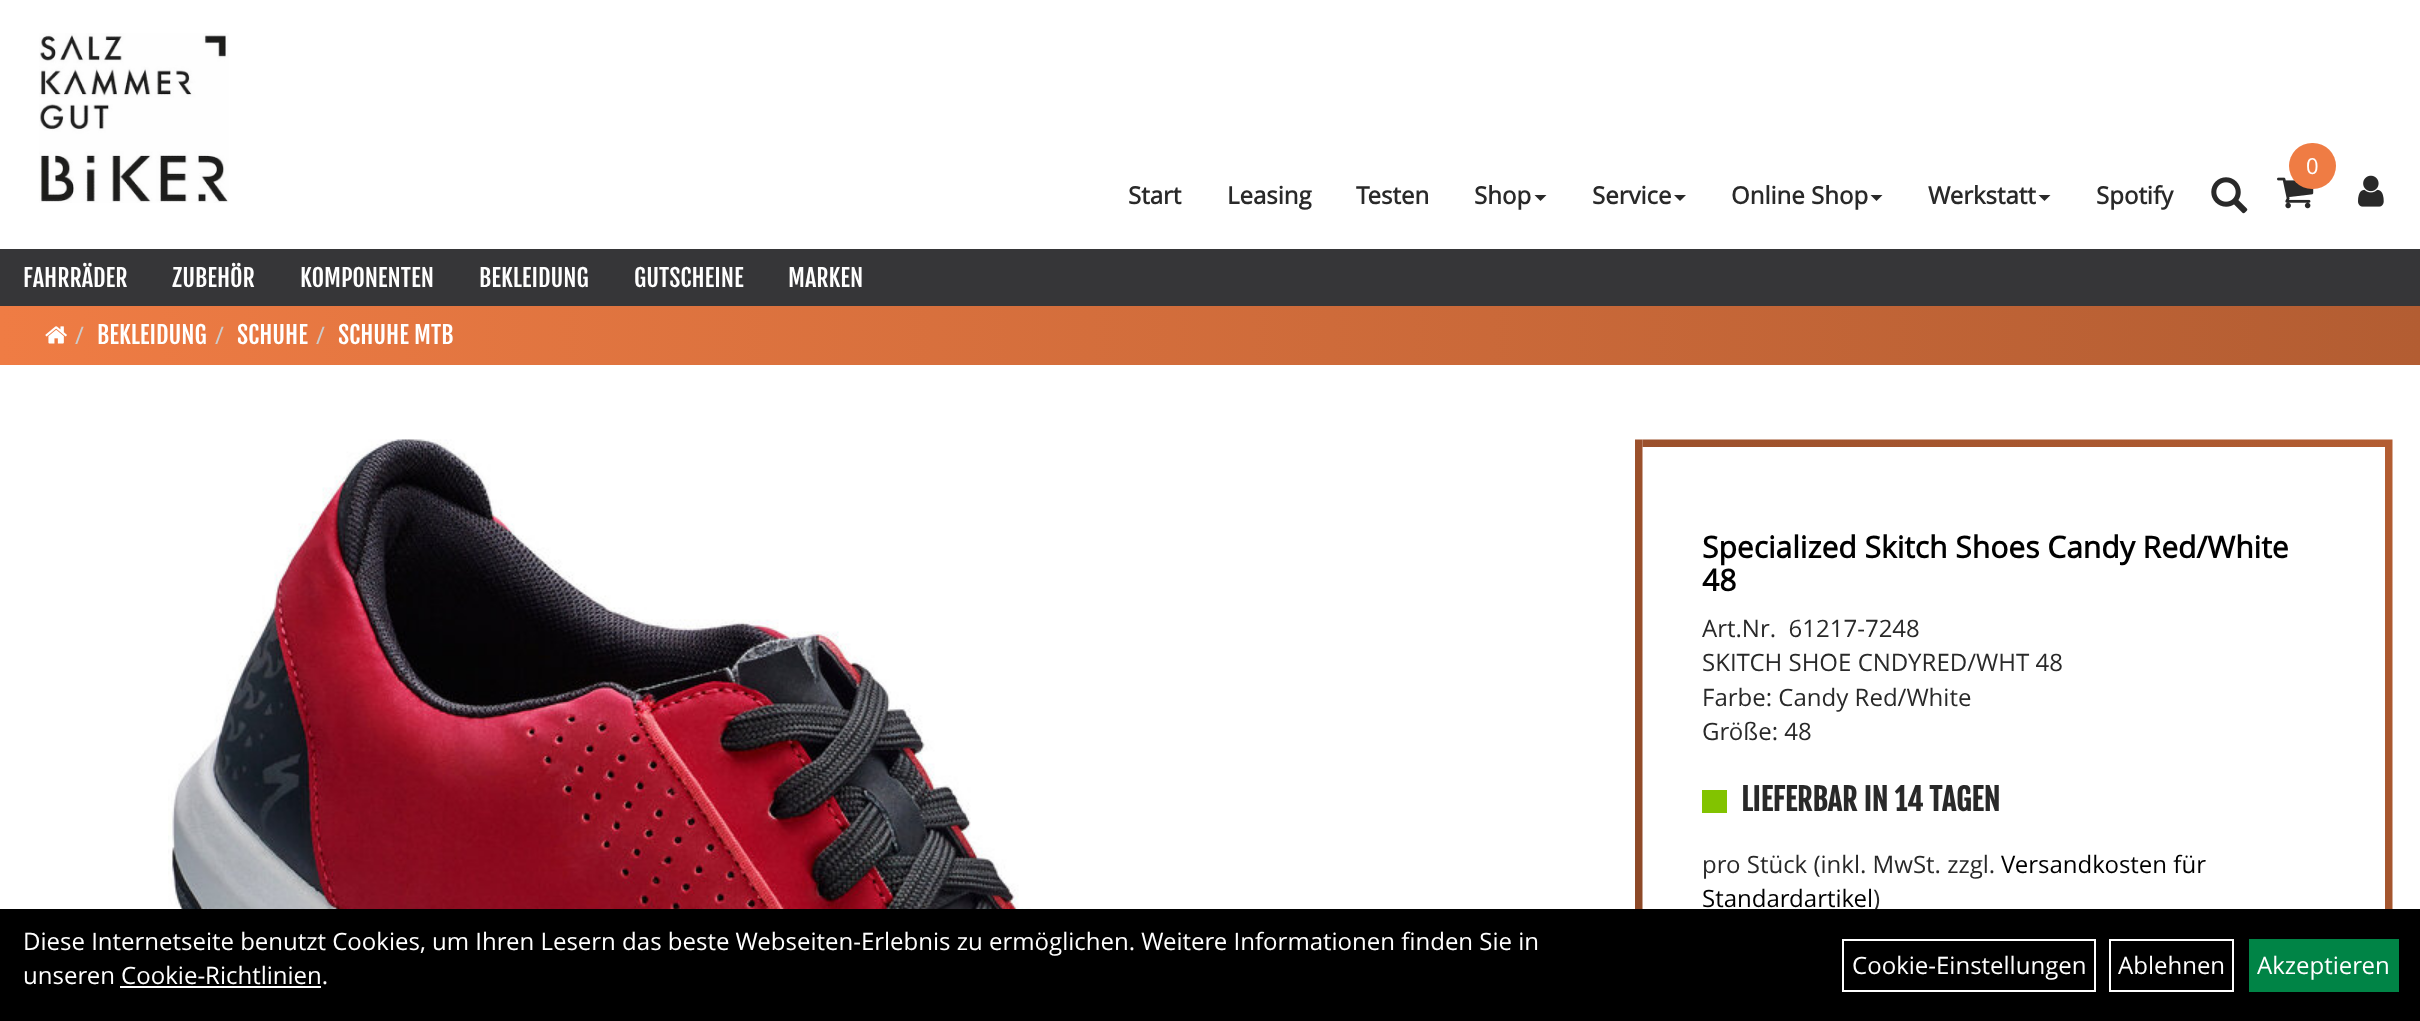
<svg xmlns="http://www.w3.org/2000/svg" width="2420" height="1021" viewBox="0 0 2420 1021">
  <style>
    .t1 { font: 22px Open Sans; fill: #fff; }
    .t2 { font: bold 24px Open Sans; fill: #292929; }
    .t3 { font: 24px Fjalla One; fill: #fff; }
    .t4 { font: 24px Open Sans; fill: #ccc; }
    .t5 { font: bold 30px Open Sans; fill: #000; }
    .t6 { font: 24px Open Sans; fill: #292929; }
    .t7 { font: bold 30px Fjalla One; fill: #292929; }
    .t8 { font: 24px Open Sans; fill: #000; }
    .t9 { font: 24px Open Sans; fill: #fff; }
  </style>
  <defs>
    <linearGradient id="g1" gradientUnits="userSpaceOnUse" x1="0" y1="335" x2="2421" y2="335"><stop offset="0" stop-color="#ef7c44"/><stop offset="1" stop-color="#b35d32"/></linearGradient>
  </defs>
  <rect width="100%" height="100%" fill="#fff"/>
  <image x="39" y="33" width="190" height="170" href="images/1.png"/>
  <image x="2277" y="177" width="37" height="32" href="images/2.png"/>
  <rect x="2289" y="143" width="47" height="46" rx="23" fill="#ef7c44"/>
  <text x="2306" y="174" class="t1">0</text>
  <image x="2211" y="177" width="37" height="37" href="images/3.png"/>
  <image x="2358" y="175" width="26" height="32" href="images/4.png"/>
  <text x="1128" y="204" class="t2">Start</text>
  <text x="1227" y="204" class="t2">Leasing</text>
  <text x="1356" y="204" class="t2">Testen</text>
  <text x="1474" y="204" class="t2">Shop</text>
  <path d="M1534.5 195H1546.5L1540.5 201Z" fill="#292929"/>
  <text x="1592" y="204" class="t2">Service</text>
  <path d="M1674 195H1686L1680 201Z" fill="#292929"/>
  <text x="1731" y="204" class="t2">Online Shop</text>
  <path d="M1870.5 195H1882.5L1876.5 201Z" fill="#292929"/>
  <text x="1928" y="204" class="t2">Werkstatt</text>
  <path d="M2038.5 195H2050.5L2044.5 201Z" fill="#292929"/>
  <text x="2096" y="204" class="t2">Spotify</text>
  <rect x="0" y="249" width="2420" height="57" fill="#363638"/>
  <text x="23" y="287" class="t3">FAHRRÄDER</text>
  <text x="172" y="287" class="t3">ZUBEHÖR</text>
  <text x="300" y="287" class="t3">KOMPONENTEN</text>
  <text x="479" y="287" class="t3">BEKLEIDUNG</text>
  <text x="634" y="287" class="t3">GUTSCHEINE</text>
  <text x="788" y="287" class="t3">MARKEN</text>
  <rect x="0" y="306" width="2420" height="59" fill="url(#g1)"/>
  <image x="45" y="326" width="22" height="18" href="images/5.png"/>
  <text x="75" y="344" class="t4">/</text>
  <text x="97" y="344" class="t3">BEKLEIDUNG</text>
  <text x="215" y="344" class="t4">/</text>
  <text x="237" y="344" class="t3">SCHUHE</text>
  <text x="316" y="344" class="t4">/</text>
  <text x="338" y="344" class="t3">SCHUHE MTB</text>
  <image x="168" y="439" width="935" height="470" href="images/6.png"/>
  <image x="1635" y="439" width="758" height="470" href="images/7.png"/>
  <text x="1702" y="558" class="t5">Specialized Skitch Shoes Candy Red/White</text>
  <text x="1702" y="591" class="t5">48</text>
  <text x="1702" y="637" class="t6" xml:space="preserve">Art.Nr.  61217-7248</text>
  <text x="1702" y="671" class="t6">SKITCH SHOE CNDYRED/WHT 48</text>
  <text x="1702" y="706" class="t6">Farbe: Candy Red/White</text>
  <text x="1702" y="740" class="t6">Größe: 48</text>
  <rect x="1702" y="790" width="25" height="23" fill="#82c300"/>
  <text x="1741" y="811" class="t7">LIEFERBAR IN 14 TAGEN</text>
  <text x="1702" y="873" class="t6">pro Stück (inkl. MwSt. zzgl.</text>
  <text x="2001" y="873" class="t8">Versandkosten für</text>
  <text x="1702" y="907" class="t8">Standardartikel</text>
  <text x="1873" y="907" class="t6">)</text>
  <rect x="0" y="909" width="2420" height="112" fill="#000"/>
  <text x="23" y="950" class="t9">Diese Internetseite benutzt Cookies, um Ihren Lesern das beste Webseiten-Erlebnis zu ermöglichen. Weitere Informationen finden Sie in</text>
  <text x="23" y="984" class="t9">unseren Cookie-Richtlinien.</text>
  <rect x="120" y="986" width="201" height="2" fill="#fff"/>
  <rect x="1843" y="940" width="252" height="51" fill="none" stroke="#fff" stroke-width="2"/>
  <text x="1852" y="974" class="t9">Cookie-Einstellungen</text>
  <rect x="2110" y="940" width="123" height="51" fill="none" stroke="#fff" stroke-width="2"/>
  <text x="2118" y="974" class="t9">Ablehnen</text>
  <rect x="2249" y="939" width="150" height="53" fill="#008446"/>
  <text x="2257" y="974" class="t9">Akzeptieren</text>
</svg>
